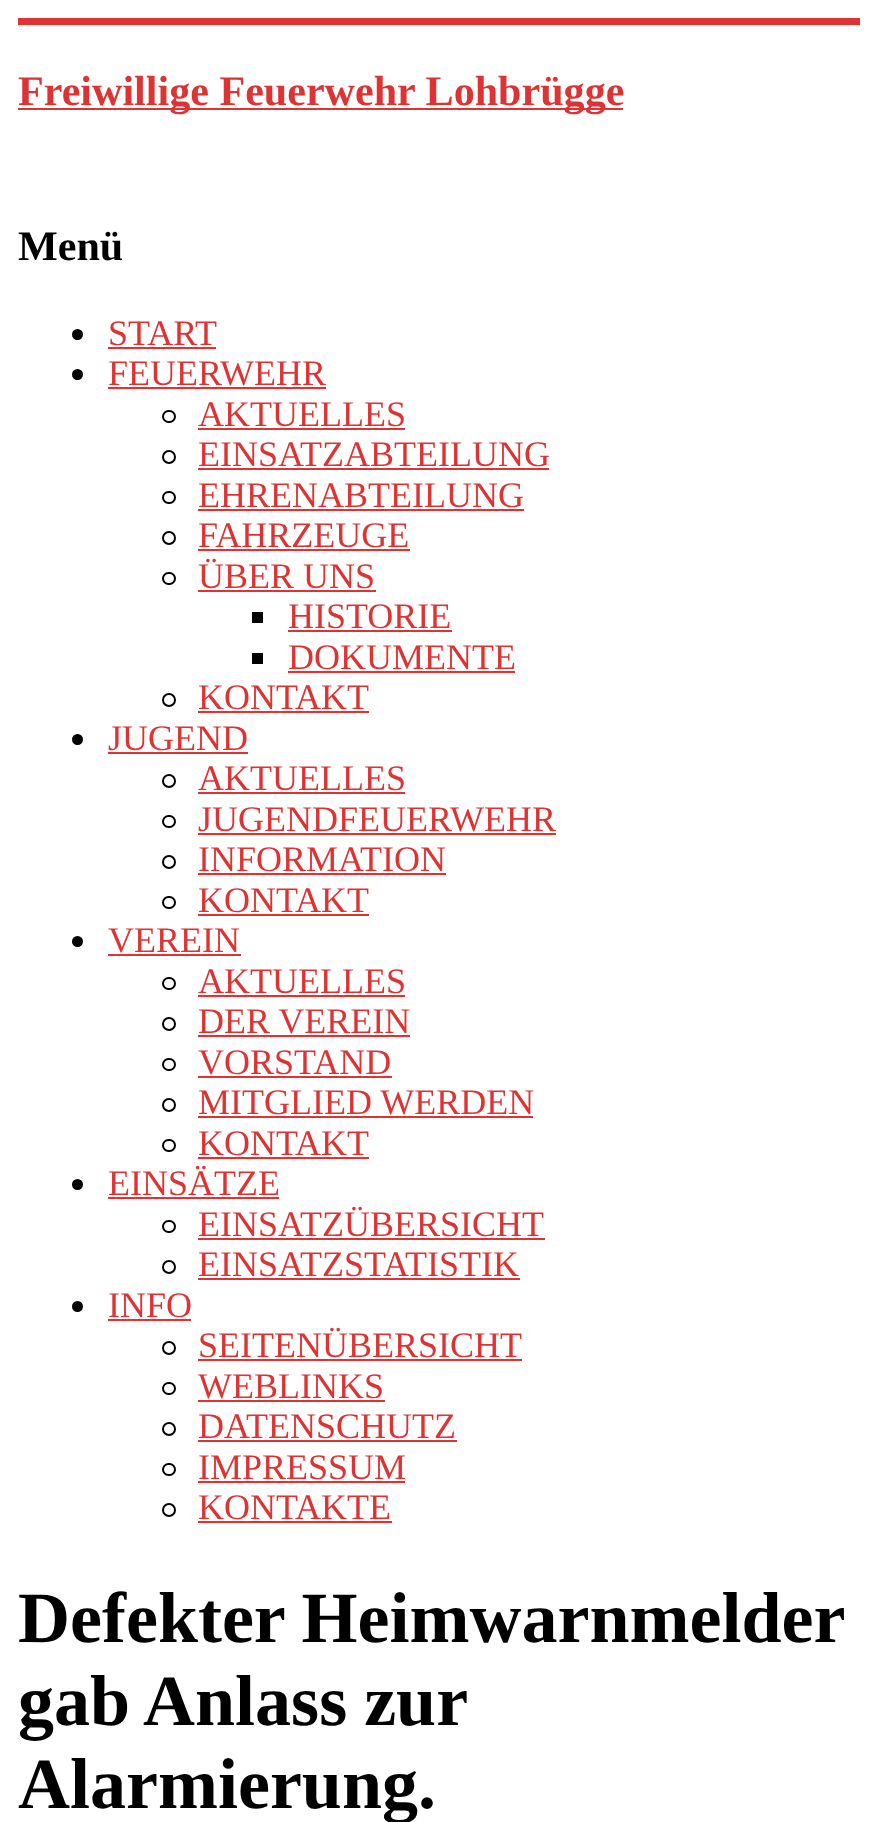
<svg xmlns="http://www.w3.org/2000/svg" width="876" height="1822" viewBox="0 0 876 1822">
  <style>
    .t1 { font: bold 42.1px Liberation Serif; fill: #d33; }
    .t2 { font: bold 42.1px Liberation Serif; fill: #000; }
    .t3 { font: 36px Liberation Serif; fill: #d33; }
    .t4 { font: bold 72px Liberation Serif; fill: #000; }
  </style>
  <rect width="100%" height="100%" fill="#fff"/>
  <rect x="18" y="18" width="842" height="7" fill="#d33"/>
  <rect x="18" y="108" width="605" height="2" fill="#d33"/>
  <text x="18" y="105" class="t1">Freiwillige Feuerwehr Lohbrügge</text>
  <text x="18" y="260" class="t2">Menü</text>
  <circle cx="77.5" cy="334.5" r="5.5" fill="#000"/>
  <text x="108" y="345" class="t3">START</text>
  <rect x="108" y="347" width="108" height="2" fill="#d33"/>
  <circle cx="77.5" cy="374.5" r="5.5" fill="#000"/>
  <text x="108" y="385" class="t3">FEUERWEHR</text>
  <rect x="108" y="387" width="218" height="2" fill="#d33"/>
  <rect x="163" y="411" width="12" height="11" rx="5.5" fill="none" stroke="#000" stroke-width="2"/>
  <text x="198" y="426" class="t3">AKTUELLES</text>
  <rect x="198" y="428" width="207" height="2" fill="#d33"/>
  <circle cx="169" cy="457" r="6" fill="none" stroke="#000" stroke-width="2"/>
  <text x="198" y="466" class="t3">EINSATZABTEILUNG</text>
  <rect x="198" y="468" width="351" height="2" fill="#d33"/>
  <rect x="163" y="492" width="12" height="11" rx="5.5" fill="none" stroke="#000" stroke-width="2"/>
  <text x="198" y="507" class="t3">EHRENABTEILUNG</text>
  <rect x="198" y="509" width="326" height="2" fill="#d33"/>
  <circle cx="169" cy="538" r="6" fill="none" stroke="#000" stroke-width="2"/>
  <text x="198" y="547" class="t3">FAHRZEUGE</text>
  <rect x="198" y="549" width="212" height="2" fill="#d33"/>
  <rect x="163" y="573" width="12" height="11" rx="5.5" fill="none" stroke="#000" stroke-width="2"/>
  <text x="198" y="588" class="t3">ÜBER UNS</text>
  <rect x="198" y="590" width="178" height="2" fill="#d33"/>
  <rect x="252" y="612" width="11" height="11" fill="#000"/>
  <text x="288" y="628" class="t3">HISTORIE</text>
  <rect x="288" y="630" width="164" height="2" fill="#d33"/>
  <rect x="252" y="653" width="11" height="11" fill="#000"/>
  <text x="288" y="669" class="t3">DOKUMENTE</text>
  <rect x="288" y="671" width="227" height="2" fill="#d33"/>
  <circle cx="169" cy="700" r="6" fill="none" stroke="#000" stroke-width="2"/>
  <text x="198" y="709" class="t3">KONTAKT</text>
  <rect x="198" y="711" width="171" height="2" fill="#d33"/>
  <circle cx="77.5" cy="739.5" r="5.5" fill="#000"/>
  <text x="108" y="750" class="t3">JUGEND</text>
  <rect x="108" y="752" width="140" height="2" fill="#d33"/>
  <circle cx="169" cy="781" r="6" fill="none" stroke="#000" stroke-width="2"/>
  <text x="198" y="790" class="t3">AKTUELLES</text>
  <rect x="198" y="792" width="207" height="2" fill="#d33"/>
  <rect x="163" y="816" width="12" height="11" rx="5.5" fill="none" stroke="#000" stroke-width="2"/>
  <text x="198" y="831" class="t3">JUGENDFEUERWEHR</text>
  <rect x="198" y="833" width="358" height="2" fill="#d33"/>
  <circle cx="169" cy="862" r="6" fill="none" stroke="#000" stroke-width="2"/>
  <text x="198" y="871" class="t3">INFORMATION</text>
  <rect x="198" y="873" width="248" height="2" fill="#d33"/>
  <rect x="163" y="897" width="12" height="11" rx="5.5" fill="none" stroke="#000" stroke-width="2"/>
  <text x="198" y="912" class="t3">KONTAKT</text>
  <rect x="198" y="914" width="171" height="2" fill="#d33"/>
  <circle cx="77.5" cy="941.5" r="5.5" fill="#000"/>
  <text x="108" y="952" class="t3">VEREIN</text>
  <rect x="108" y="954" width="133" height="2" fill="#d33"/>
  <rect x="163" y="978" width="12" height="11" rx="5.5" fill="none" stroke="#000" stroke-width="2"/>
  <text x="198" y="993" class="t3">AKTUELLES</text>
  <rect x="198" y="995" width="207" height="2" fill="#d33"/>
  <circle cx="169" cy="1024" r="6" fill="none" stroke="#000" stroke-width="2"/>
  <text x="198" y="1033" class="t3">DER VEREIN</text>
  <rect x="198" y="1035" width="212" height="2" fill="#d33"/>
  <rect x="163" y="1059" width="12" height="11" rx="5.5" fill="none" stroke="#000" stroke-width="2"/>
  <text x="198" y="1074" class="t3">VORSTAND</text>
  <rect x="198" y="1076" width="194" height="2" fill="#d33"/>
  <circle cx="169" cy="1105" r="6" fill="none" stroke="#000" stroke-width="2"/>
  <text x="198" y="1114" class="t3">MITGLIED WERDEN</text>
  <rect x="198" y="1116" width="335" height="2" fill="#d33"/>
  <rect x="163" y="1140" width="12" height="11" rx="5.5" fill="none" stroke="#000" stroke-width="2"/>
  <text x="198" y="1155" class="t3">KONTAKT</text>
  <rect x="198" y="1157" width="171" height="2" fill="#d33"/>
  <circle cx="77.5" cy="1184.5" r="5.5" fill="#000"/>
  <text x="108" y="1195" class="t3">EINSÄTZE</text>
  <rect x="108" y="1197" width="171" height="2" fill="#d33"/>
  <rect x="163" y="1221" width="12" height="11" rx="5.5" fill="none" stroke="#000" stroke-width="2"/>
  <text x="198" y="1236" class="t3">EINSATZÜBERSICHT</text>
  <rect x="198" y="1238" width="347" height="2" fill="#d33"/>
  <circle cx="169" cy="1267" r="6" fill="none" stroke="#000" stroke-width="2"/>
  <text x="198" y="1276" class="t3">EINSATZSTATISTIK</text>
  <rect x="198" y="1278" width="322" height="2" fill="#d33"/>
  <circle cx="77.5" cy="1306.5" r="5.5" fill="#000"/>
  <text x="108" y="1317" class="t3">INFO</text>
  <rect x="108" y="1319" width="83" height="2" fill="#d33"/>
  <circle cx="169" cy="1348" r="6" fill="none" stroke="#000" stroke-width="2"/>
  <text x="198" y="1357" class="t3">SEITENÜBERSICHT</text>
  <rect x="198" y="1359" width="324" height="2" fill="#d33"/>
  <rect x="163" y="1383" width="12" height="11" rx="5.5" fill="none" stroke="#000" stroke-width="2"/>
  <text x="198" y="1398" class="t3">WEBLINKS</text>
  <rect x="198" y="1400" width="187" height="2" fill="#d33"/>
  <circle cx="169" cy="1429" r="6" fill="none" stroke="#000" stroke-width="2"/>
  <text x="198" y="1438" class="t3">DATENSCHUTZ</text>
  <rect x="198" y="1440" width="259" height="2" fill="#d33"/>
  <rect x="163" y="1464" width="12" height="11" rx="5.5" fill="none" stroke="#000" stroke-width="2"/>
  <text x="198" y="1479" class="t3">IMPRESSUM</text>
  <rect x="198" y="1481" width="207" height="2" fill="#d33"/>
  <circle cx="169" cy="1510" r="6" fill="none" stroke="#000" stroke-width="2"/>
  <text x="198" y="1519" class="t3">KONTAKTE</text>
  <rect x="198" y="1521" width="194" height="2" fill="#d33"/>
  <text x="18" y="1642" word-spacing="-1" class="t4">Defekter Heimwarnmelder</text>
  <text x="18" y="1725" word-spacing="-1" class="t4">gab Anlass zur</text>
  <text x="18" y="1808" class="t4">Alarmierung.</text>
</svg>
